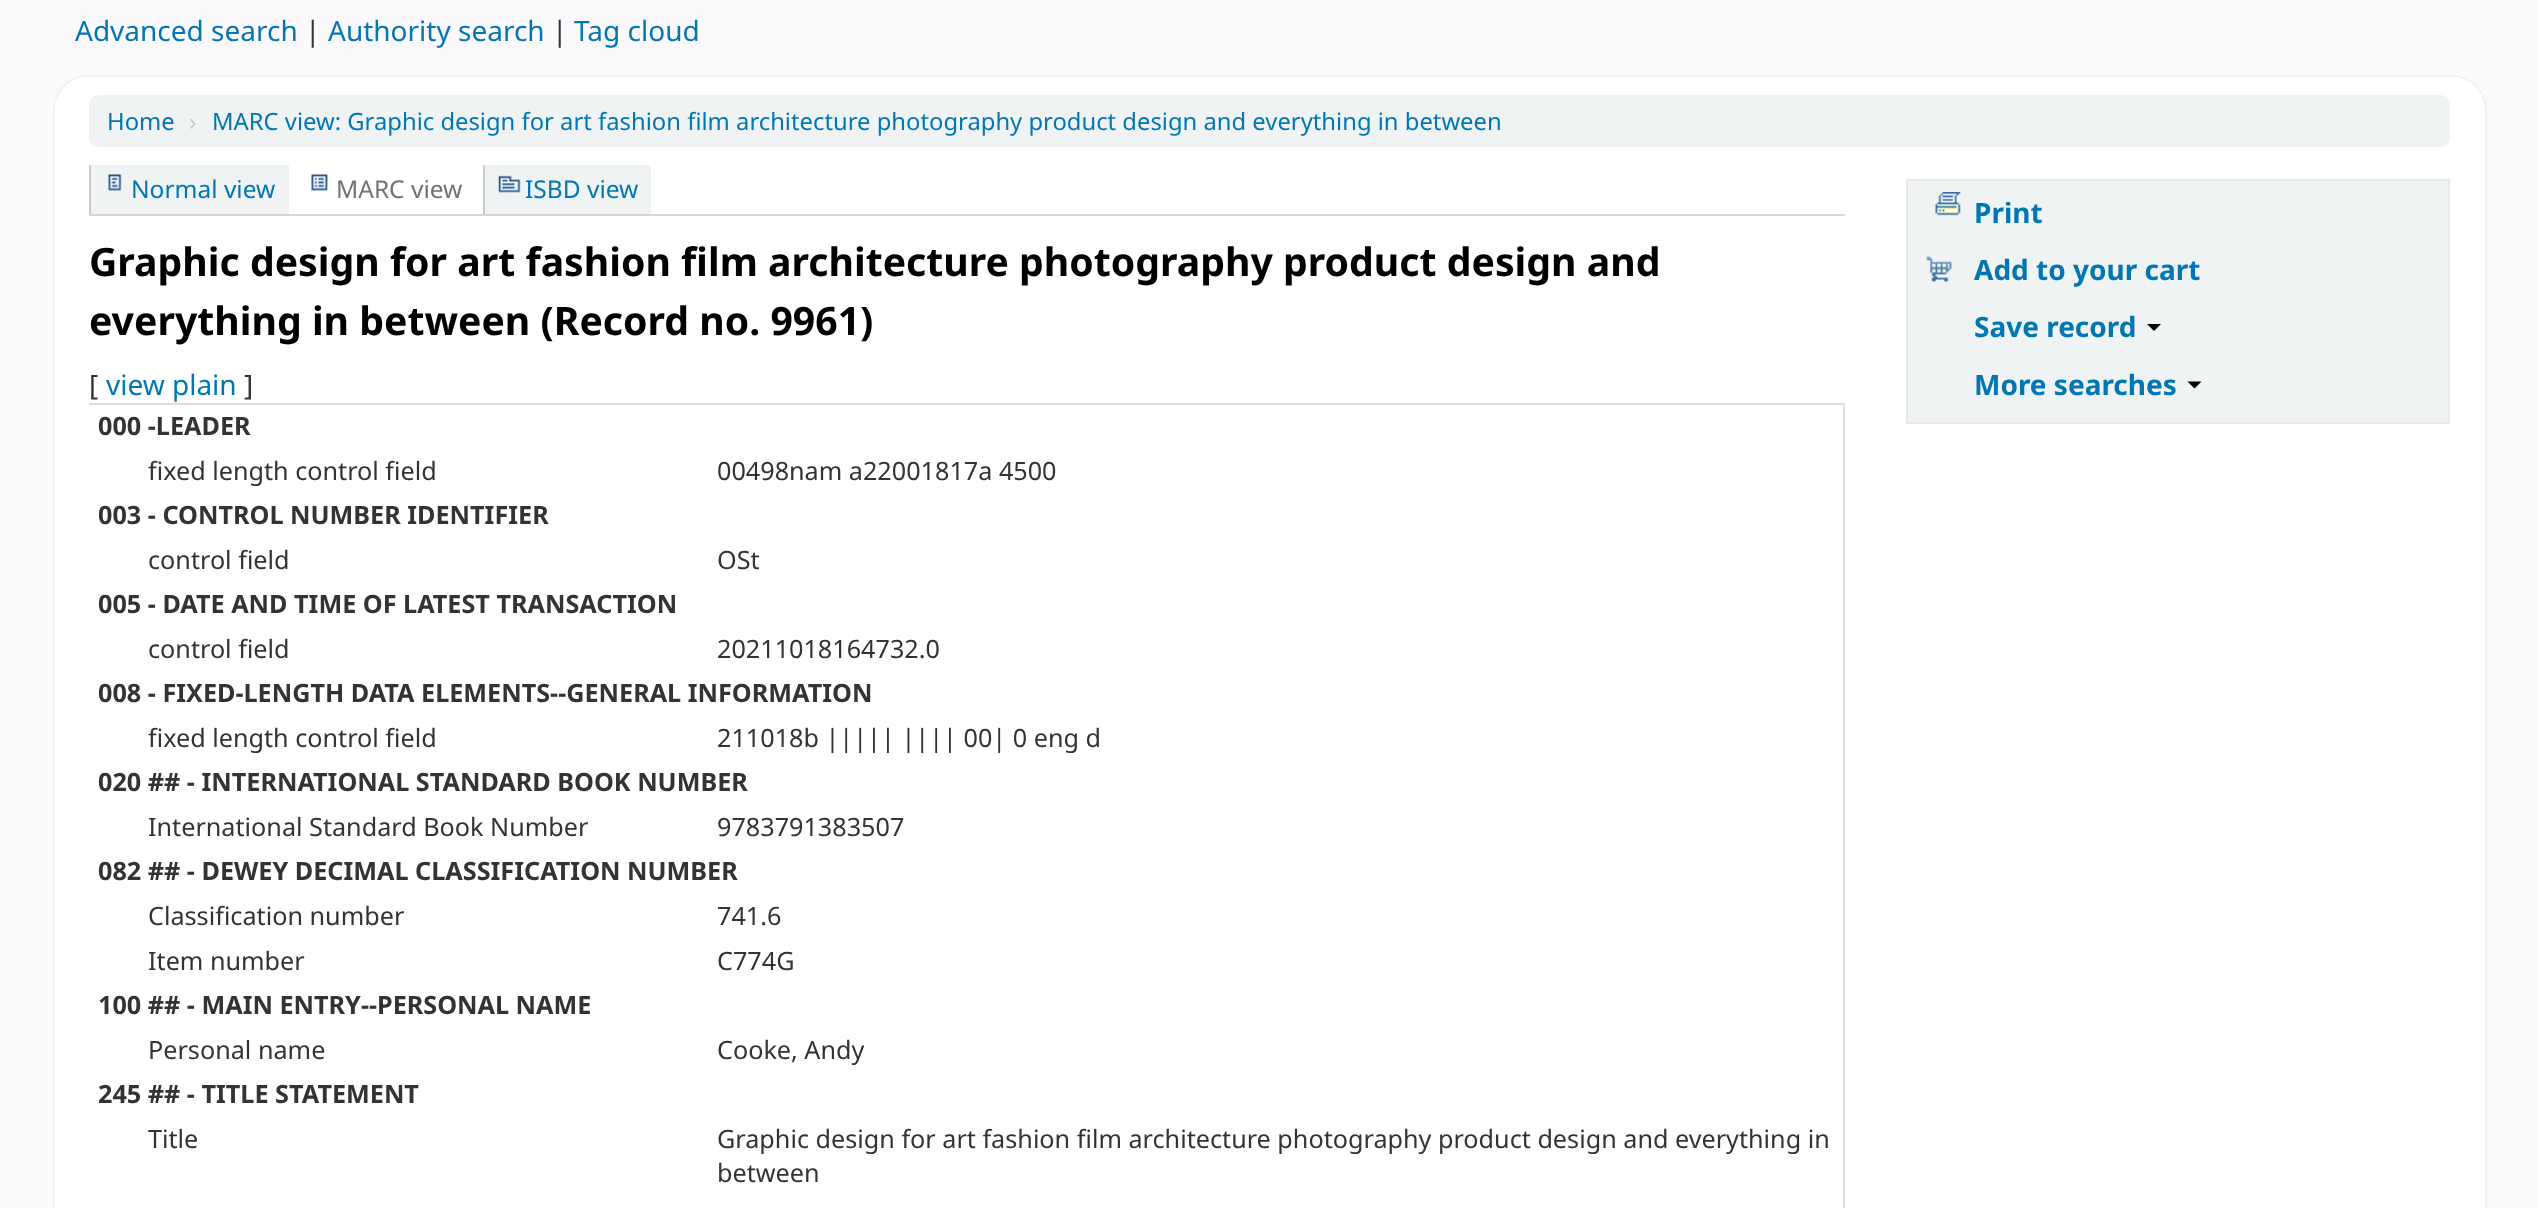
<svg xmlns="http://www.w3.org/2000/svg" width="2538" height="1208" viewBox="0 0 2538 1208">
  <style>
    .t1 { font: 28px Noto Sans; fill: #0076b2; }
    .t2 { font: 28px Noto Sans; fill: #333; }
    .t3 { font: 23.8px Noto Sans; fill: #0076b2; }
    .t4 { font: 23.8px Noto Sans; fill: #ccc; }
    .t5 { font: 24.5px Noto Sans; fill: #0076b2; }
    .t6 { font: 24.5px Noto Sans; fill: #727272; }
    .t7 { font: bold 39.2px Noto Sans; fill: #000; }
    .t8 { font: bold 25.2px Noto Sans; fill: #333; }
    .t9 { font: 25.2px Noto Sans; fill: #333; }
    .t10 { font: bold 28px Noto Sans; fill: #0076b2; }
  </style>
  <rect width="100%" height="100%" fill="#fcf9fc"/>
  <text x="75" y="41" class="t1">Advanced search</text>
  <text x="305" y="41" class="t2">|</text>
  <text x="328" y="41" class="t1">Authority search</text>
  <text x="552" y="41" class="t2">|</text>
  <text x="574" y="41" class="t1">Tag cloud</text>
  <rect x="54" y="76" width="2432" height="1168" rx="34" fill="#fff" stroke="#f0f3f3" stroke-width="2"/>
  <rect x="89" y="95" width="2361" height="52" rx="9" fill="#f0f3f3"/>
  <text x="107" y="130" class="t3">Home</text>
  <text x="189" y="130" class="t4">›</text>
  <text x="212" y="130" class="t3">MARC view: Graphic design for art fashion film architecture photography product design and everything in between</text>
  <rect x="89" y="214" width="1756" height="2" fill="#d6d6d6"/>
  <rect x="91" y="165" width="198" height="49" fill="#f0f3f3"/>
  <rect x="89" y="165" width="2" height="49" fill="#c9c9c9"/>
  <image x="108" y="174" width="14" height="17" href="images/1.png"/>
  <text x="131" y="198" class="t5">Normal view</text>
  <image x="311" y="174" width="17" height="17" href="images/2.png"/>
  <text x="336" y="198" class="t6">MARC view</text>
  <rect x="485" y="165" width="166" height="49" fill="#f0f3f3"/>
  <rect x="483" y="165" width="2" height="49" fill="#c9c9c9"/>
  <image x="498" y="175" width="23" height="18" href="images/3.png"/>
  <text x="525" y="198" class="t5">ISBD view</text>
  <text x="89" y="276" class="t7">Graphic design for art fashion film architecture photography product design and</text>
  <text x="89" y="335" class="t7">everything in between (Record no. 9961)</text>
  <text x="89" y="395" class="t2">[</text>
  <text x="106" y="395" class="t1">view plain</text>
  <text x="244" y="395" class="t2">]</text>
  <rect x="89" y="403" width="1756" height="2" fill="#ddd"/>
  <rect x="1843" y="403" width="2" height="805" fill="#ddd"/>
  <text x="98" y="435" class="t8">000 -LEADER</text>
  <text x="148" y="480" class="t9">fixed length control field</text>
  <text x="717" y="480" class="t9">00498nam a22001817a 4500</text>
  <text x="98" y="524" class="t8">003 - CONTROL NUMBER IDENTIFIER</text>
  <text x="148" y="569" class="t9">control field</text>
  <text x="717" y="569" class="t9">OSt</text>
  <text x="98" y="613" class="t8">005 - DATE AND TIME OF LATEST TRANSACTION</text>
  <text x="148" y="658" class="t9">control field</text>
  <text x="717" y="658" class="t9">20211018164732.0</text>
  <text x="98" y="702" class="t8">008 - FIXED-LENGTH DATA ELEMENTS--GENERAL INFORMATION</text>
  <text x="148" y="747" class="t9">fixed length control field</text>
  <text x="717" y="747" class="t9">211018b ||||| |||| 00| 0 eng d</text>
  <text x="98" y="791" class="t8">020 ## - INTERNATIONAL STANDARD BOOK NUMBER</text>
  <text x="148" y="836" class="t9">International Standard Book Number</text>
  <text x="717" y="836" class="t9">9783791383507</text>
  <text x="98" y="880" class="t8">082 ## - DEWEY DECIMAL CLASSIFICATION NUMBER</text>
  <text x="148" y="925" class="t9">Classification number</text>
  <text x="717" y="925" class="t9">741.6</text>
  <text x="148" y="970" class="t9">Item number</text>
  <text x="717" y="970" class="t9">C774G</text>
  <text x="98" y="1014" class="t8">100 ## - MAIN ENTRY--PERSONAL NAME</text>
  <text x="148" y="1059" class="t9">Personal name</text>
  <text x="717" y="1059" class="t9">Cooke, Andy</text>
  <text x="98" y="1103" class="t8">245 ## - TITLE STATEMENT</text>
  <text x="148" y="1148" class="t9">Title</text>
  <text x="717" y="1148" class="t9">Graphic design for art fashion film architecture photography product design and everything in</text>
  <text x="717" y="1182" class="t9">between</text>
  <rect x="1907" y="180" width="542" height="243" fill="#f0f3f3" stroke="#e8e8e8" stroke-width="2"/>
  <image x="1935" y="192" width="26" height="24" href="images/4.png"/>
  <text x="1974" y="223" class="t10">Print</text>
  <image x="1926" y="256" width="26" height="26" href="images/5.png"/>
  <text x="1974" y="280" class="t10">Add to your cart</text>
  <text x="1974" y="337" class="t10">Save record</text>
  <path d="M2147 324H2161L2154 331Z" fill="#000"/>
  <text x="1974" y="395" class="t10">More searches</text>
  <path d="M2187.5 381.5H2201.5L2194.5 388.5Z" fill="#000"/>
</svg>
